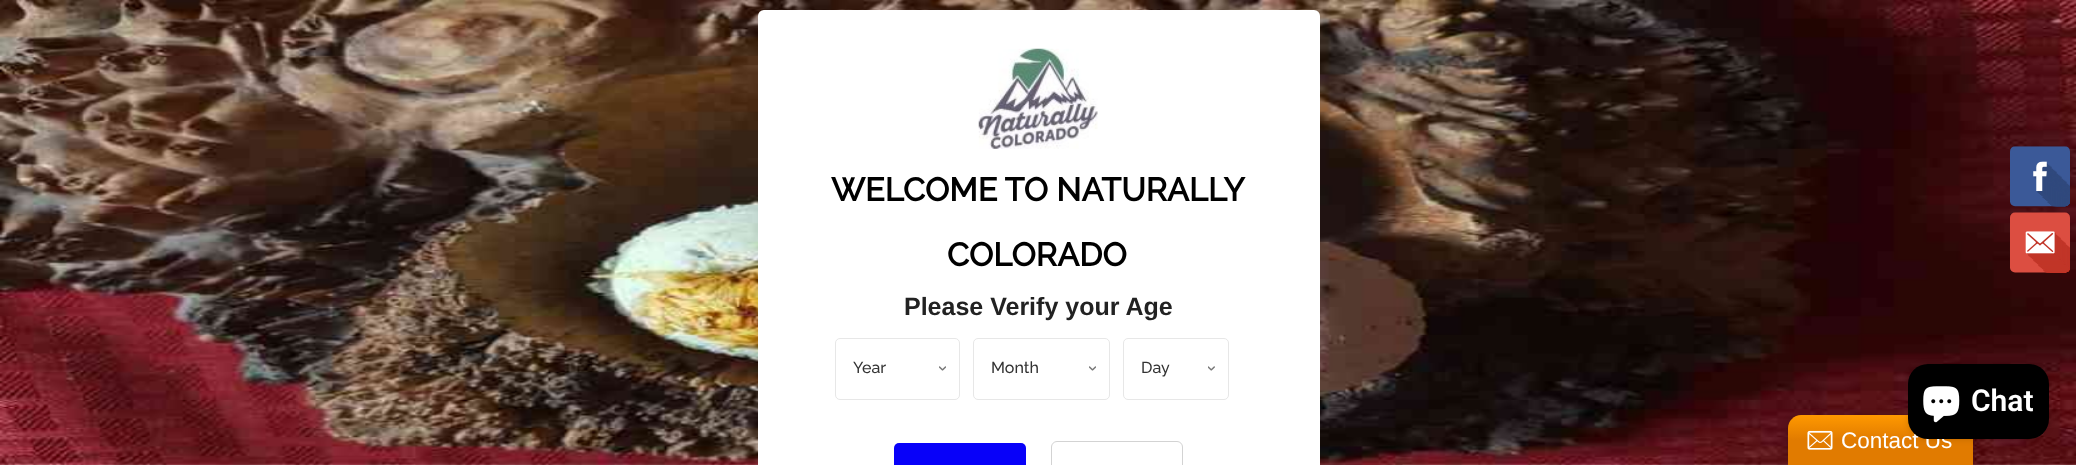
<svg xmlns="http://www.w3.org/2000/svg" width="2076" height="465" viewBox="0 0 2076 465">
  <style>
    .t1 { font: bold 32.5px Raleway; fill: #000; }
    .t2 { font: bold 25px Liberation Sans; fill: #222; }
    .t3 { font: 500 16px Raleway; fill: #333; }
    .t4 { font: 22.5px Liberation Sans; fill: #fff; }
    .t5 { font: 600 30px Roboto; fill: #fff; }
  </style>
  <defs>
    <linearGradient id="g1" gradientUnits="userSpaceOnUse" x1="1880" y1="415" x2="1880" y2="465"><stop offset="0" stop-color="#f90"/><stop offset="0.5" stop-color="#e17b00"/></linearGradient>
  </defs>
  <rect width="100%" height="100%" fill="#fff"/>
  <image x="532" y="464" width="226" height="1" href="images/8.png"/>
  <image x="1320" y="464" width="84" height="1" href="images/9.png"/>
  <image x="1440" y="464" width="348" height="1" href="images/10.png"/>
  <image x="0" y="0" width="2076" height="465" href="images/1.png"/>
  <rect x="758" y="10" width="562" height="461" rx="6" fill="#fff"/>
  <image x="978" y="48" width="120" height="101" href="images/2.png"/>
  <text x="831" y="201" class="t1">WELCOME TO NATURALLY</text>
  <text x="947" y="266" class="t1">COLORADO</text>
  <text x="904" y="315" class="t2">Please Verify your Age</text>
  <image x="939" y="366" width="7" height="5" href="images/3.png"/>
  <rect x="835.5" y="338.5" width="124" height="61" rx="4.5" fill="none" stroke="#e7e7e7"/>
  <text x="853" y="373" class="t3">Year</text>
  <image x="1089" y="366" width="7" height="5" href="images/3.png"/>
  <rect x="973.5" y="338.5" width="136" height="61" rx="4.5" fill="none" stroke="#e7e7e7"/>
  <text x="991" y="373" class="t3">Month</text>
  <image x="1208" y="366" width="7" height="5" href="images/4.png"/>
  <rect x="1123.5" y="338.5" width="105" height="61" rx="4.5" fill="none" stroke="#e7e7e7"/>
  <text x="1141" y="373" class="t3">Day</text>
  <rect x="894" y="443" width="132" height="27" rx="5" fill="#0801f9"/>
  <rect x="1051.5" y="441.5" width="131" height="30" rx="5.5" fill="none" stroke="#d3d3d3"/>
  <image x="2010" y="146" width="60" height="127" href="images/5.png"/>
  <rect x="1788" y="415" width="185" height="50" rx="13" fill="#00000033" filter="blur(3px)"/>
  <path d="M1801 415H1960C1967 415 1973 421 1973 428V465H1788V428C1788 421 1794 415 1801 415Z" fill="url(#g1)"/>
  <rect x="1908" y="364" width="141" height="75" rx="20" fill="#00000026" filter="blur(3px)"/>
  <text x="1841" y="448" class="t4">Contact Us</text>
  <rect x="1908" y="364" width="141" height="75" rx="20" fill="#000"/>
  <image x="1923" y="386" width="37" height="37" href="images/6.png"/>
  <text x="1971" y="411" class="t5">Chat</text>
  <image x="1807" y="430" width="26" height="20" href="images/7.png"/>
</svg>
